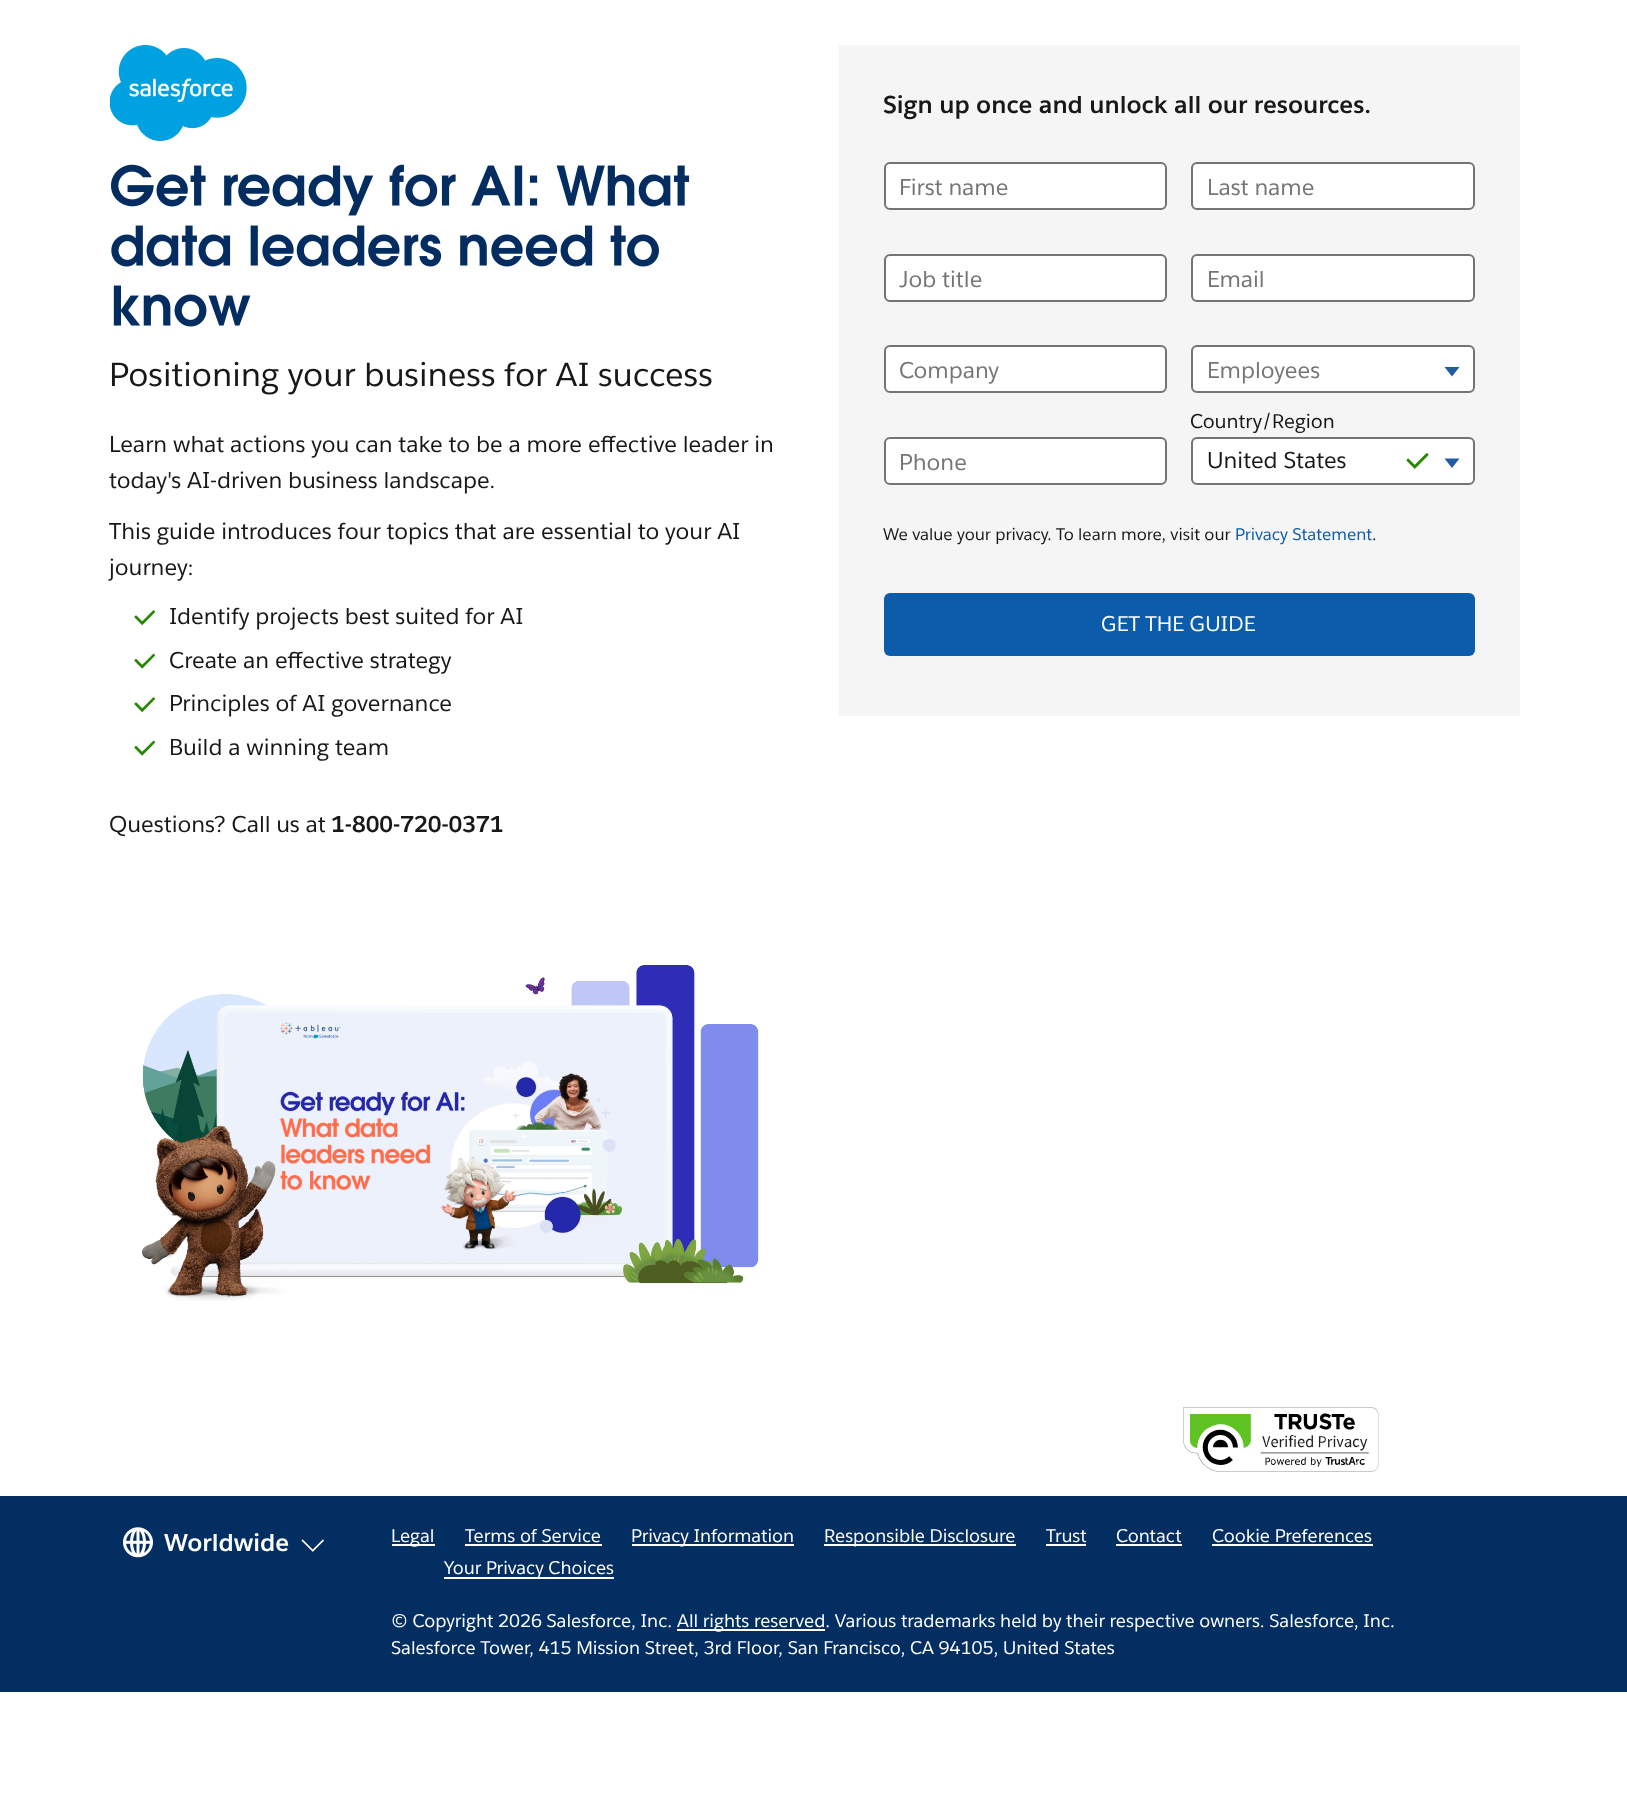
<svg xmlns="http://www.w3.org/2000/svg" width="1627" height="1802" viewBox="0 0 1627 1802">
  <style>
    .t1 { font: 33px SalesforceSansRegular; fill: #181818; }
    .t2 { font: 22.5px SalesforceSansRegular; fill: #181818; }
    .t3 { font: bold 22.5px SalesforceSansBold; fill: #181818; }
    .t4 { font: bold 24px SalesforceSansBold; fill: #181818; }
    .t5 { font: 22.5px SalesforceSansRegular; fill: #767676; }
    .t6 { font: 19.5px SalesforceSansRegular; fill: #181818; }
    .t7 { font: 16.5px SalesforceSansRegular; fill: #181818; }
    .t8 { font: 16.5px SalesforceSansRegular; fill: #0b5cab; }
    .t9 { font: 21px SalesforceSansRegular; fill: #fff; }
    .t10 { font: bold 24px SalesforceSansBold; fill: #fff; }
    .t11 { font: 18px SalesforceSansRegular; fill: #fff; }
  </style>
  <rect width="100%" height="100%" fill="#fff"/>
  <image x="110" y="45" width="137" height="96" href="images/1.png"/>
  <image x="110" y="164" width="580" height="52" href="images/2.png"/>
  <image x="111" y="225" width="548" height="42" href="images/3.png"/>
  <image x="113" y="285" width="138" height="42" href="images/4.png"/>
  <text x="109" y="386" class="t1">Positioning your business for AI success</text>
  <text x="109" y="452" class="t2">Learn what actions you can take to be a more effective leader in</text>
  <text x="109" y="488" class="t2">today's AI-driven business landscape.</text>
  <text x="109" y="539" class="t2">This guide introduces four topics that are essential to your AI</text>
  <text x="109" y="575" class="t2">journey:</text>
  <image x="134" y="610" width="21" height="15" href="images/5.png"/>
  <text x="169" y="624" class="t2">Identify projects best suited for AI</text>
  <image x="134" y="653" width="21" height="16" href="images/6.png"/>
  <text x="169" y="668" class="t2">Create an effective strategy</text>
  <image x="134" y="697" width="21" height="15" href="images/5.png"/>
  <text x="169" y="711" class="t2">Principles of AI governance</text>
  <image x="134" y="740" width="21" height="16" href="images/6.png"/>
  <text x="169" y="755" class="t2">Build a winning team</text>
  <text x="109" y="832" class="t2">Questions? Call us at</text>
  <text x="331" y="832" class="t3">1-800-720-0371</text>
  <image x="142" y="965" width="617" height="336" href="images/7.png"/>
  <rect x="839" y="45" width="681" height="671" fill="#f5f5f5"/>
  <text x="883" y="113" class="t4">Sign up once and unlock all our resources.</text>
  <rect x="885" y="163" width="281" height="46" rx="5" fill="#fff" stroke="#747474" stroke-width="2"/>
  <text x="899" y="195" class="t5">First name</text>
  <rect x="1192" y="163" width="282" height="46" rx="5" fill="#fff" stroke="#747474" stroke-width="2"/>
  <text x="1207" y="195" class="t5">Last name</text>
  <rect x="885" y="255" width="281" height="46" rx="5" fill="#fff" stroke="#747474" stroke-width="2"/>
  <text x="899" y="287" class="t5">Job title</text>
  <rect x="1192" y="255" width="282" height="46" rx="5" fill="#fff" stroke="#747474" stroke-width="2"/>
  <text x="1207" y="287" class="t5">Email</text>
  <rect x="885" y="346" width="281" height="46" rx="5" fill="#fff" stroke="#747474" stroke-width="2"/>
  <text x="899" y="378" class="t5">Company</text>
  <rect x="1192" y="346" width="282" height="46" rx="5" fill="#fff" stroke="#747474" stroke-width="2"/>
  <text x="1207" y="378" class="t5">Employees</text>
  <path d="M1444.5 367H1459.5L1452 376.5Z" fill="#215ca0"/>
  <rect x="885" y="438" width="281" height="46" rx="5" fill="#fff" stroke="#747474" stroke-width="2"/>
  <text x="899" y="470" class="t5">Phone</text>
  <text x="1190" y="428" class="t6">Country/Region</text>
  <rect x="1192" y="438" width="282" height="46" rx="5" fill="#fff" stroke="#747474" stroke-width="2"/>
  <text x="1207" y="468" class="t2">United States</text>
  <image x="1406" y="453" width="23" height="16" href="images/8.png"/>
  <path d="M1444.5 458.5H1459.5L1452 468Z" fill="#215ca0"/>
  <text x="883" y="540" class="t7">We value your privacy. To learn more, visit our</text>
  <text x="1235" y="540" class="t8">Privacy Statement</text>
  <text x="1372" y="540" class="t7">.</text>
  <rect x="884" y="593" width="591" height="63" rx="6" fill="#0b5cab"/>
  <text x="1101" y="631" class="t9">GET THE GUIDE</text>
  <image x="1183" y="1407" width="196" height="65" href="images/9.png"/>
  <rect x="0" y="1496" width="1627" height="196" fill="#032e61"/>
  <image x="123" y="1527" width="30" height="31" href="images/10.png"/>
  <text x="164" y="1551" class="t10">Worldwide</text>
  <image x="301" y="1539" width="23" height="13" href="images/11.png"/>
  <rect x="392" y="1544" width="43" height="2" fill="#fff"/>
  <text x="391" y="1542" class="t11">Legal</text>
  <text x="465" y="1542" class="t11">Terms of Service</text>
  <rect x="465" y="1544" width="137" height="2" fill="#fff"/>
  <rect x="632" y="1544" width="162" height="2" fill="#fff"/>
  <text x="631" y="1542" class="t11">Privacy Information</text>
  <rect x="824" y="1544" width="192" height="2" fill="#fff"/>
  <text x="824" y="1542" class="t11">Responsible Disclosure</text>
  <text x="1046" y="1542" class="t11">Trust</text>
  <rect x="1046" y="1544" width="40" height="2" fill="#fff"/>
  <text x="1116" y="1542" class="t11">Contact</text>
  <rect x="1116" y="1544" width="66" height="2" fill="#fff"/>
  <text x="1212" y="1542" class="t11">Cookie Preferences</text>
  <rect x="1212" y="1544" width="161" height="2" fill="#fff"/>
  <rect x="444" y="1577" width="170" height="2" fill="#fff"/>
  <text x="444" y="1574" class="t11">Your Privacy Choices</text>
  <text x="391" y="1627" class="t11">© Copyright 2026 Salesforce, Inc.</text>
  <rect x="677" y="1629" width="148" height="2" fill="#fff"/>
  <text x="677" y="1627" class="t11">All rights reserved. Various trademarks held by their respective owners. Salesforce, Inc.</text>
  <text x="391" y="1654" class="t11">Salesforce Tower, 415 Mission Street, 3rd Floor, San Francisco, CA 94105, United States</text>
</svg>
